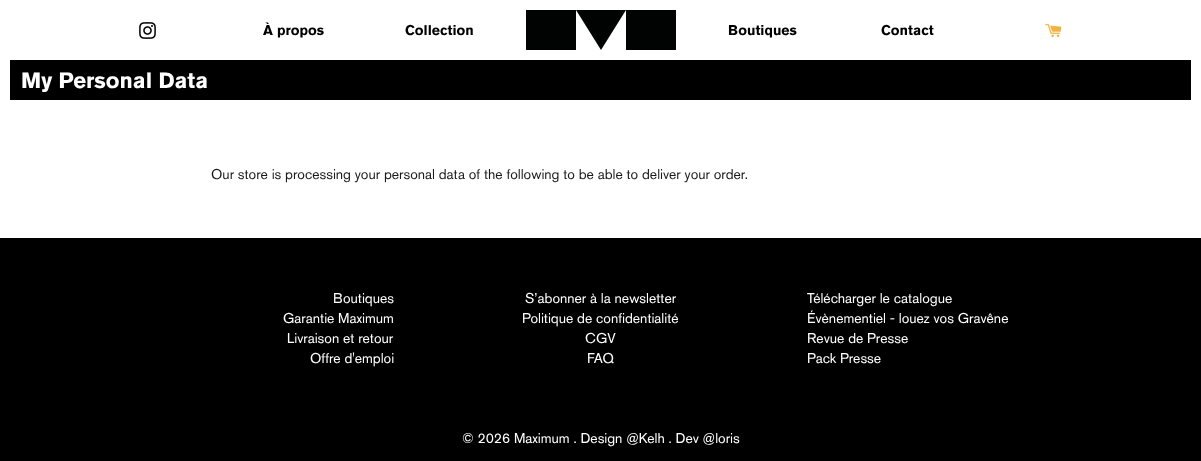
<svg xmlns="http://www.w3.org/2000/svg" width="1201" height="461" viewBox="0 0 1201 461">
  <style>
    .t1 { font: bold 14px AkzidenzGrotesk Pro; fill: #000; }
    .t2 { font: bold 22px AkzidenzGrotesk Pro; fill: #fff; }
    .t3 { font: 14px AkzidenzGrotesk Pro; fill: #1a1a1a; }
    .t4 { font: 14px AkzidenzGrotesk Pro; fill: #fff; }
  </style>
  <rect width="100%" height="100%" fill="#fff"/>
  <image x="139" y="22" width="17" height="17" href="images/1.png"/>
  <text x="263" y="35" class="t1">À propos</text>
  <text x="405" y="35" class="t1">Collection</text>
  <rect x="626" y="10" width="50" height="40" fill="#010202"/>
  <path d="M576 10L601 50L626 10Z" fill="#010202"/>
  <rect x="526" y="10" width="50" height="40" fill="#010202"/>
  <text x="728" y="35" class="t1">Boutiques</text>
  <text x="881" y="35" class="t1">Contact</text>
  <image x="1045" y="24" width="17" height="14" href="images/2.png"/>
  <rect x="10" y="60" width="1181" height="40" fill="#000"/>
  <text x="21" y="88" class="t2">My Personal Data</text>
  <text x="211" y="179" class="t3">Our store is processing your personal data of the following to be able to deliver your order.</text>
  <rect x="0" y="238" width="1201" height="223" fill="#000"/>
  <text x="333" y="303" class="t4">Boutiques</text>
  <text x="283" y="323" class="t4">Garantie Maximum</text>
  <text x="287" y="343" class="t4">Livraison et retour</text>
  <text x="310" y="363" class="t4">Offre d'emploi</text>
  <text x="525" y="303" class="t4">S’abonner à la newsletter</text>
  <text x="522" y="323" class="t4">Politique de confidentialité</text>
  <text x="585" y="343" class="t4">CGV</text>
  <text x="587" y="363" class="t4">FAQ</text>
  <text x="807" y="303" class="t4">Télécharger le catalogue</text>
  <text x="807" y="323" class="t4">Évènementiel - louez vos Gravêne</text>
  <text x="807" y="343" class="t4">Revue de Presse</text>
  <text x="807" y="363" class="t4">Pack Presse</text>
  <text x="462" y="443" class="t4">© 2026 Maximum . Design @Kelh . Dev @loris</text>
</svg>
